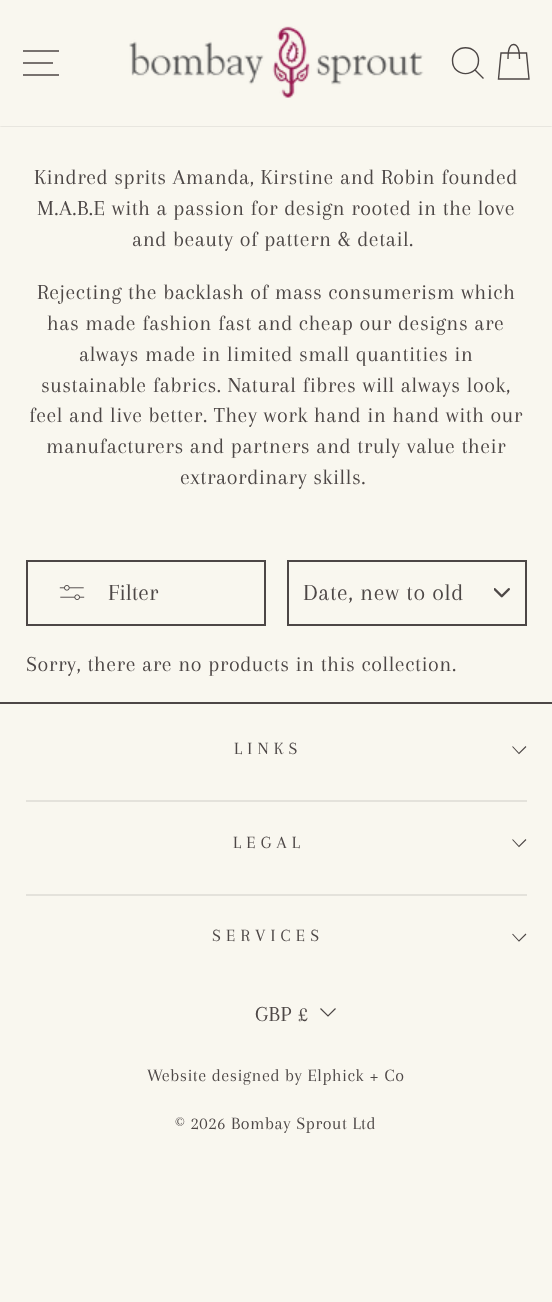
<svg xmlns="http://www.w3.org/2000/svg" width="552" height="1302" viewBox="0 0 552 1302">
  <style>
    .t1 { font: 22.1px Arapey; letter-spacing: 0.55px; fill: #4d4746; }
    .t2 { font: 24px Arapey; fill: #4d4746; }
    .t3 { font: 24px Arapey; letter-spacing: 0.6px; fill: #4d4746; }
    .t4 { font: 17.75px Arapey; letter-spacing: 5.25px; fill: #4d4746; }
    .t5 { font: 18px Arapey; letter-spacing: 0.55px; fill: #4d4746; }
  </style>
  <defs>
    <clipPath id="clip1"><rect x="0" y="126" width="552" height="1"/></clipPath>
  </defs>
  <rect width="100%" height="100%" fill="#f9f7ef"/>
  <g clip-path="url(#clip1)">
    <rect x="0" y="0" width="552" height="126" fill="#00000033" filter="blur(1px)"/>
  </g>
  <path d="M23 51H59M23 63H53M23 75H59" fill="none" stroke="#4d4746" stroke-width="1.4"/>
  <image x="129" y="26" width="295" height="72" href="images/1.png"/>
  <path d="M478.5 60.5C478.5 78 452.5 78 452.5 60.5C452.5 43.5 478.5 43.5 478.5 60.5ZM483.5 78.5L475 70" fill="none" stroke="#4d4746" stroke-width="1.4"/>
  <path d="M508 59C508 47.5 510.5 44.5 513.5 44.5C517 44.5 519.5 47.5 519.5 59M501 53H526.5L529 79H498.5Z" fill="none" stroke="#4d4746" stroke-width="1.4"/>
  <text x="34" y="184" class="t1">Kindred sprits Amanda, Kirstine and Robin founded</text>
  <text x="37" y="215" class="t1">M.A.B.E with a passion for design rooted in the love</text>
  <text x="132" y="246" class="t1">and beauty of pattern &amp; detail.</text>
  <text x="37" y="299" class="t1">Rejecting the backlash of mass consumerism which</text>
  <text x="47" y="330" class="t1">has made fashion fast and cheap our designs are</text>
  <text x="79" y="361" class="t1">always made in limited small quantities in</text>
  <text x="41" y="392" class="t1">sustainable fabrics. Natural fibres will always look,</text>
  <text x="29" y="422" class="t1">feel and live better. They work hand in hand with our</text>
  <text x="46" y="453" class="t1">manufacturers and partners and truly value their</text>
  <text x="180" y="484" class="t1">extraordinary skills.</text>
  <rect x="27" y="561" width="238" height="64" fill="none" stroke="#4d4746" stroke-width="2"/>
  <image x="59" y="585" width="26" height="15" href="images/2.png"/>
  <text x="108" y="600" class="t2">Filter</text>
  <image x="494" y="588" width="16" height="10" href="images/3.png"/>
  <rect x="288" y="561" width="238" height="64" fill="none" stroke="#4d4746" stroke-width="2"/>
  <text x="303" y="600" class="t3">Date, new to old</text>
  <text x="26" y="671" class="t1">Sorry, there are no products in this collection.</text>
  <rect x="0" y="702" width="552" height="2" fill="#4d4746"/>
  <text x="234" y="754" class="t4">LINKS</text>
  <path d="M512.5 746.5L519 753.5L526 746.5" fill="none" stroke="#4d4746" stroke-width="1.1"/>
  <rect x="26" y="800" width="501" height="2" fill="#e4e2db"/>
  <text x="233" y="848" class="t4">LEGAL</text>
  <path d="M512.5 839.5L519 846.5L526 839.5" fill="none" stroke="#4d4746" stroke-width="1.1"/>
  <rect x="26" y="894" width="501" height="2" fill="#e4e2db"/>
  <text x="212" y="941" class="t4">SERVICES</text>
  <path d="M512.5 934L519 941L526 934" fill="none" stroke="#4d4746" stroke-width="1.1"/>
  <text x="255" y="1021" class="t1">GBP £</text>
  <path d="M320.5 1008.5L328 1016L335.5 1008.5" fill="none" stroke="#4d4746" stroke-width="1.2"/>
  <text x="147" y="1081" class="t5">Website designed by Elphick + Co</text>
  <text x="175" y="1129" class="t5">© 2026 Bombay Sprout Ltd</text>
</svg>
